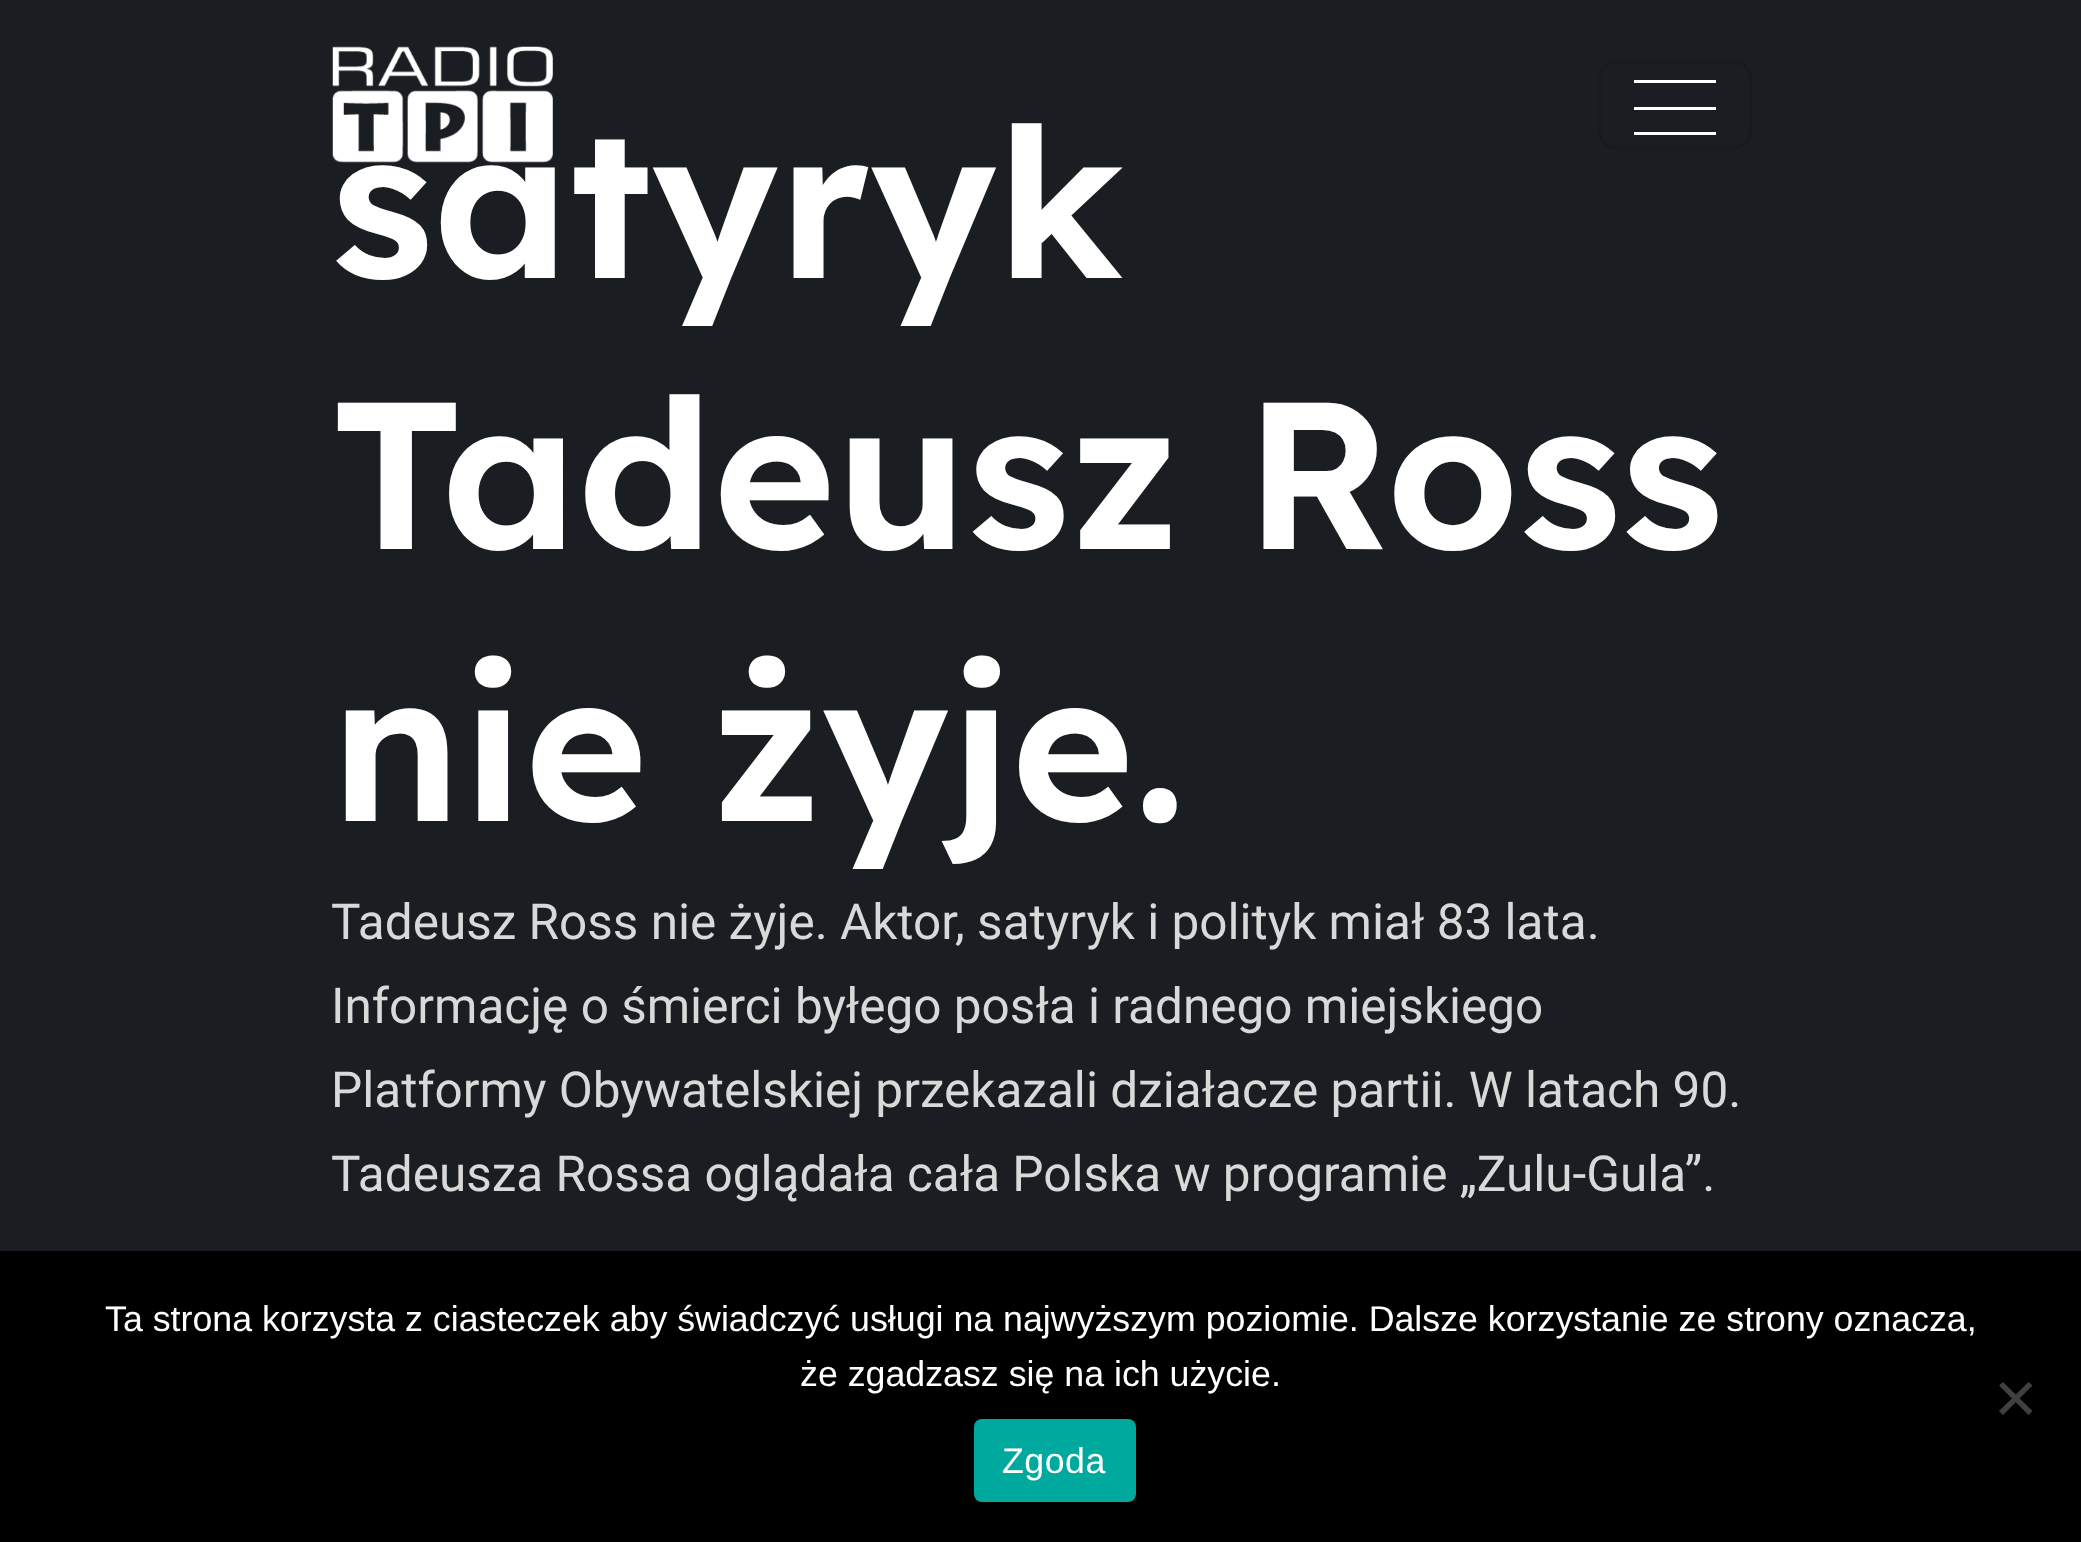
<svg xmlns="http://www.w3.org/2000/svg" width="2081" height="1542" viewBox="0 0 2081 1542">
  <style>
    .t1 { font: 600 209px Lexend; fill: #fff; }
    .t2 { font: 49.5px Roboto; fill: #d9d9d9; }
    .t3 { font: 35.75px Liberation Sans; fill: #fff; }
    .t4 { font: 35.75px Liberation Sans; letter-spacing: 0.5px; fill: #fff; }
  </style>
  <rect width="100%" height="100%" fill="#1a1d22"/>
  <text x="331" y="278" class="t1">satyryk</text>
  <image x="332" y="46" width="221" height="117" href="images/1.png"/>
  <rect x="1599.5" y="62.5" width="151" height="85" rx="15.5" fill="none" stroke="#171a1f" stroke-width="3"/>
  <rect x="1634" y="80" width="82" height="3" fill="#fff"/>
  <rect x="1634" y="132" width="82" height="3" fill="#fff"/>
  <rect x="1634" y="107" width="82" height="3" fill="#fff"/>
  <text x="331" y="549" class="t1">Tadeusz Ross</text>
  <text x="331" y="821" class="t1">nie żyje.</text>
  <text x="331" y="939" class="t2">Tadeusz Ross nie żyje. Aktor, satyryk i polityk miał 83 lata.</text>
  <text x="331" y="1023" class="t2">Informację o śmierci byłego posła i radnego miejskiego</text>
  <text x="331" y="1107" class="t2">Platformy Obywatelskiej przekazali działacze partii. W latach 90.</text>
  <text x="331" y="1191" class="t2">Tadeusza Rossa oglądała cała Polska w programie „Zulu-Gula”.</text>
  <rect x="0" y="1251" width="2081" height="291" fill="#000"/>
  <text x="105" y="1331" class="t3">Ta strona korzysta z ciasteczek aby świadczyć usługi na najwyższym poziomie. Dalsze korzystanie ze strony oznacza,</text>
  <text x="800" y="1386" class="t3">że zgadzasz się na ich użycie.</text>
  <path d="M2028.5 1382L2032.5 1385.5L2003 1415L1999 1411Z" fill="#404040"/>
  <path d="M1999 1385.5L2003 1382L2032.5 1411L2028.5 1415Z" fill="#404040"/>
  <rect x="974" y="1419" width="162" height="83" rx="8" fill="#00a99d"/>
  <text x="1002" y="1473" class="t4">Zgoda</text>
</svg>
